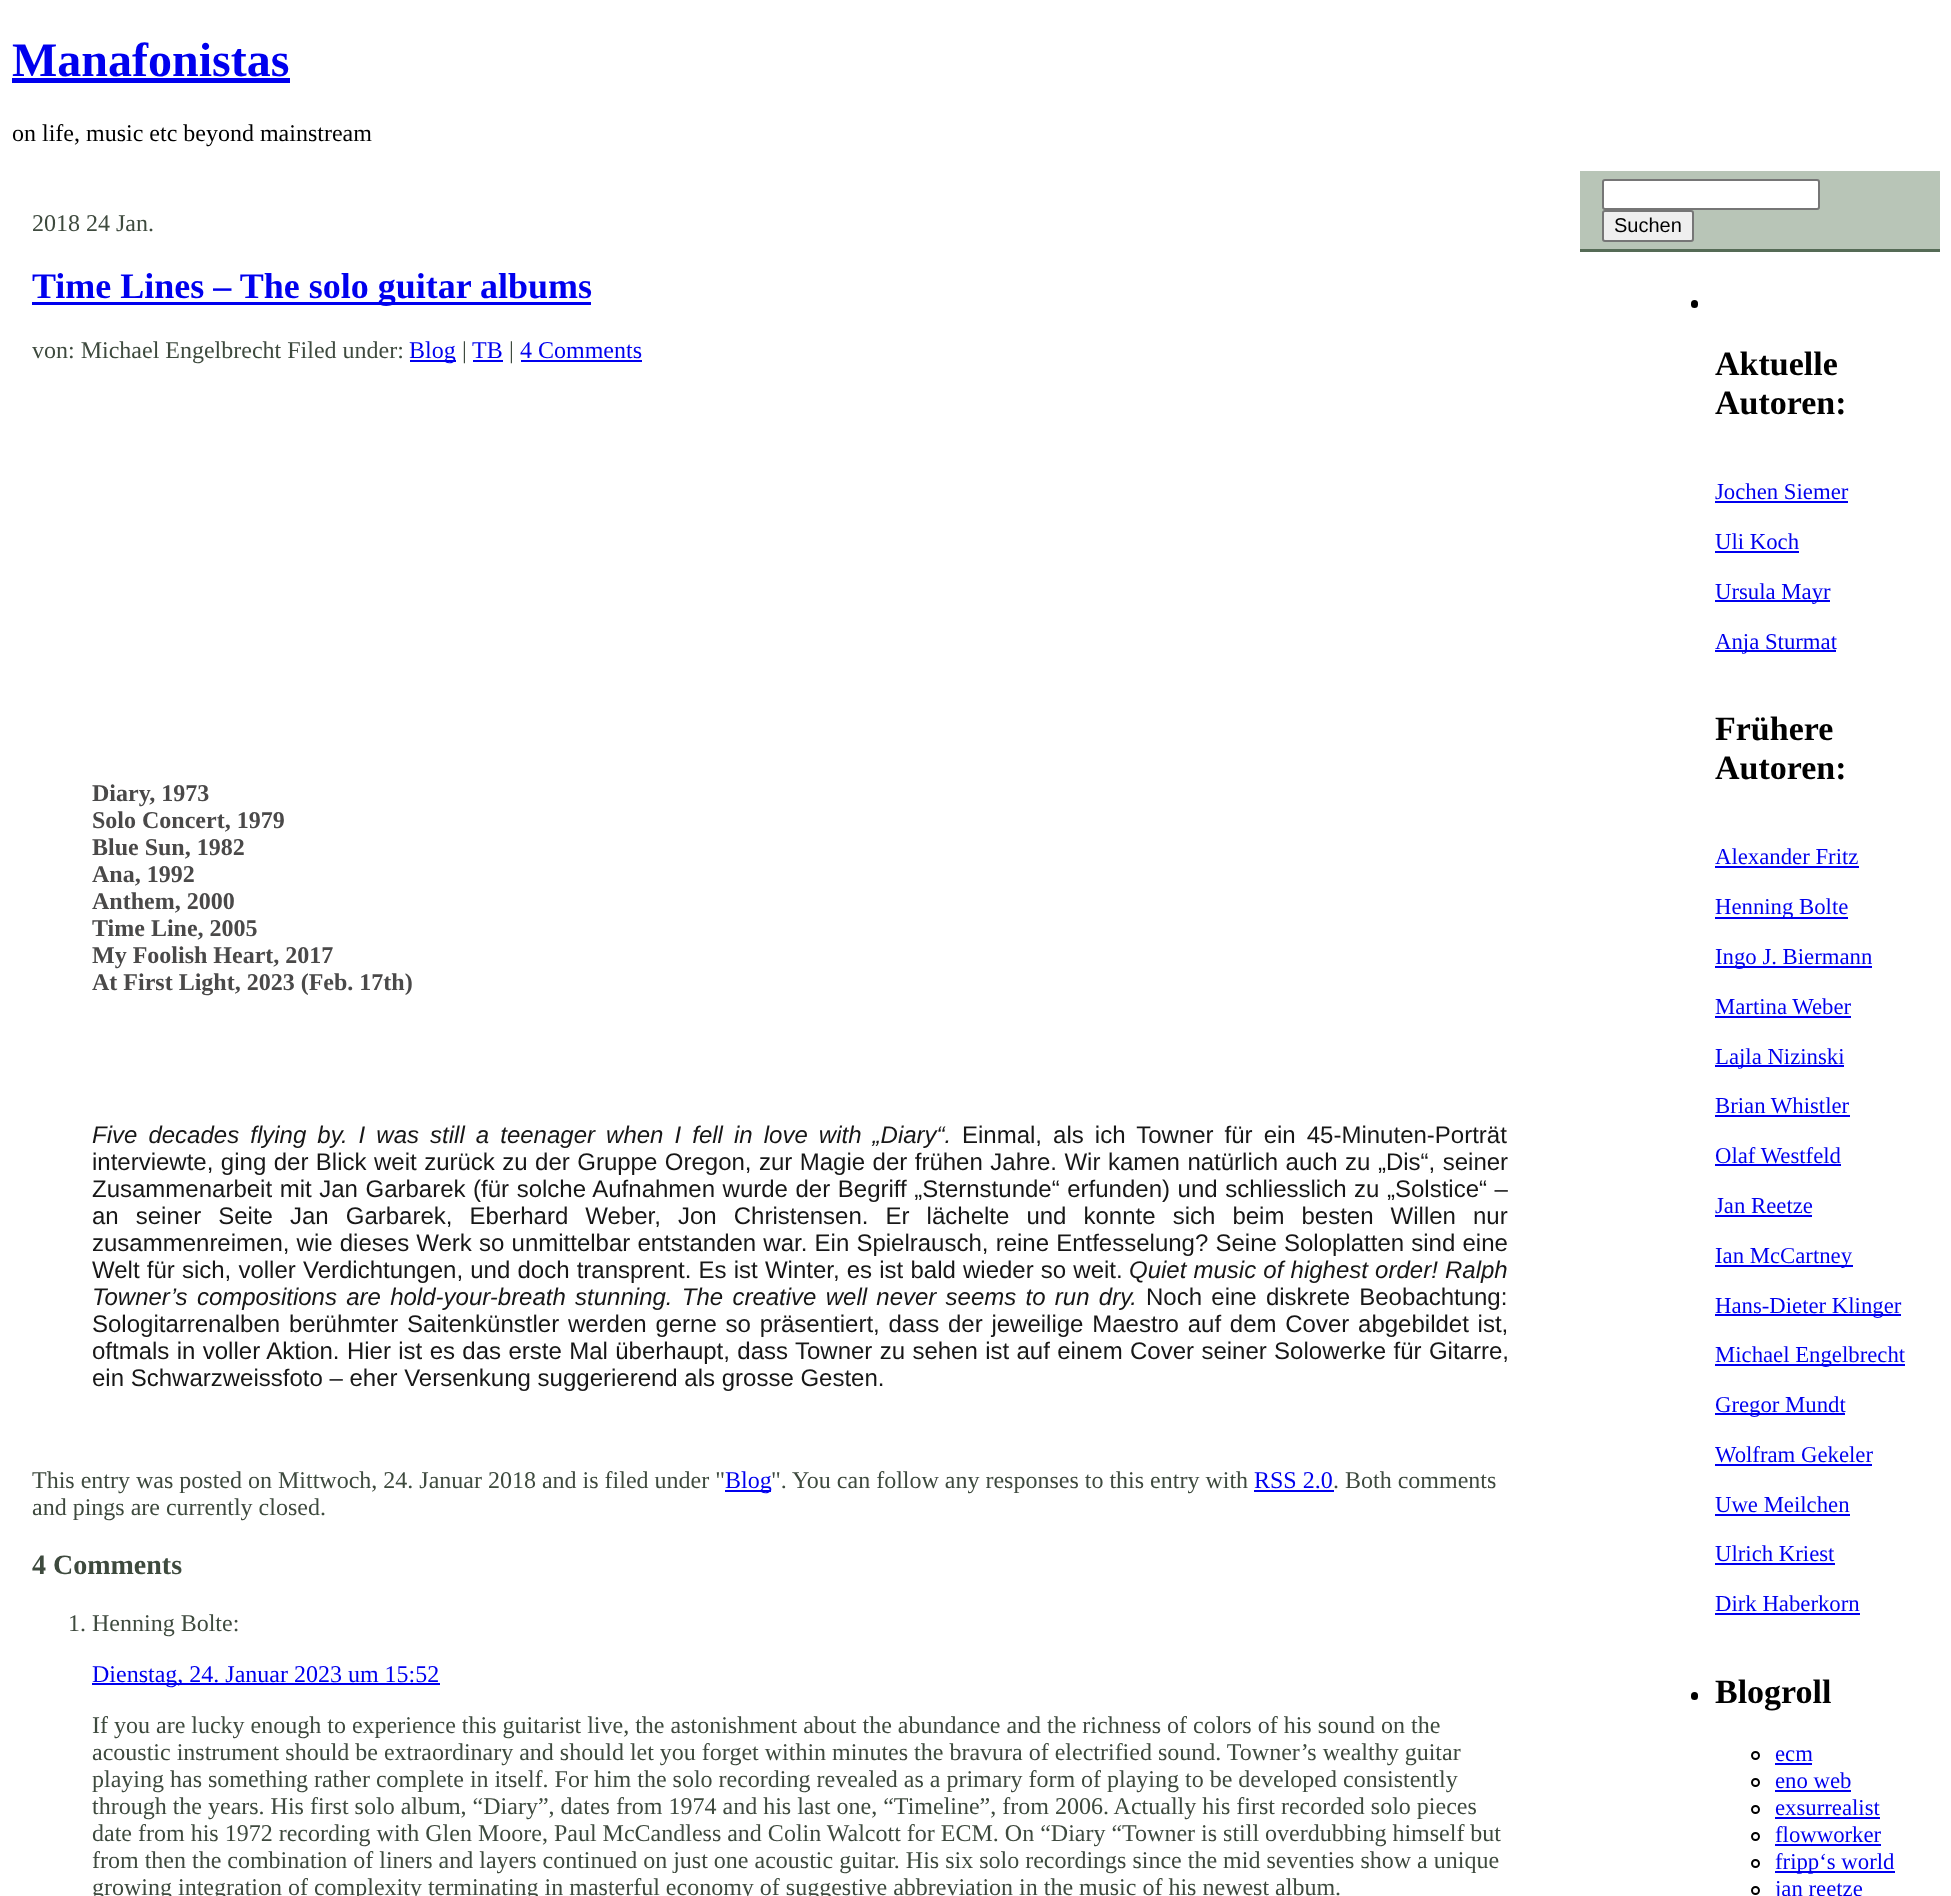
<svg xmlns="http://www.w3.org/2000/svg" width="1951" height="1896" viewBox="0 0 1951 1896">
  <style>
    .t1 { font: bold 48px Liberation Serif; fill: #00e; }
    .t2 { font: 24px Liberation Serif; fill: #000; }
    .t3 { font: 24px Liberation Serif; fill: #3e4a3e; }
    .t4 { font: bold 36px Liberation Serif; fill: #00e; }
    .t5 { font: 24px Liberation Serif; fill: #00e; }
    .t6 { font: bold 24px Liberation Serif; fill: #4a4949; }
    .t7 { font: italic 24px Liberation Sans; fill: #171717; }
    .t8 { font: 24px Liberation Sans; fill: #171717; }
    .t9 { font: bold 28px Liberation Serif; fill: #3e4a3e; }
    .t10 { font: 20px Liberation Sans; fill: #000; }
    .t11 { font: bold 34px Liberation Serif; fill: #000; }
    .t12 { font: 22.75px Liberation Serif; fill: #00e; }
  </style>
  <rect width="100%" height="100%" fill="#fff"/>
  <text x="12" y="76" class="t1">Manafonistas</text>
  <rect x="12" y="78" width="278" height="5" fill="#00e"/>
  <text x="12" y="141" class="t2">on life, music etc beyond mainstream</text>
  <text x="32" y="231" class="t3">2018 24 Jan.</text>
  <rect x="32" y="302" width="559" height="3" fill="#00e"/>
  <text x="32" y="298" class="t4">Time Lines – The solo guitar albums</text>
  <text x="32" y="358" class="t3">von: Michael Engelbrecht Filed under:</text>
  <rect x="410" y="360" width="46" height="2" fill="#00e"/>
  <text x="409" y="358" class="t5">Blog</text>
  <text x="462" y="358" class="t3">|</text>
  <text x="472" y="358" class="t5">TB</text>
  <rect x="473" y="360" width="30" height="2" fill="#00e"/>
  <text x="509" y="358" class="t3">|</text>
  <text x="520" y="358" class="t5">4 Comments</text>
  <rect x="521" y="360" width="121" height="2" fill="#00e"/>
  <text x="92" y="801" class="t6">Diary, 1973</text>
  <text x="92" y="828" class="t6">Solo Concert, 1979</text>
  <text x="92" y="855" class="t6">Blue Sun, 1982</text>
  <text x="92" y="882" class="t6">Ana, 1992</text>
  <text x="92" y="909" class="t6">Anthem, 2000</text>
  <text x="92" y="936" class="t6">Time Line, 2005</text>
  <text x="92" y="963" class="t6">My Foolish Heart, 2017</text>
  <text x="92" y="990" class="t6">At First Light, 2023 (Feb. 17th)</text>
  <text x="92" y="1143" word-spacing="4.4" class="t7">Five decades flying by. I was still a teenager when I fell in love with „Diary“.</text>
  <text x="962" y="1143" word-spacing="4.4" class="t8">Einmal, als ich Towner für ein 45-Minuten-Porträt</text>
  <text x="92" y="1170" word-spacing="0.8" class="t8">interviewte, ging der Blick weit zurück zu der Gruppe Oregon, zur Magie der frühen Jahre. Wir kamen natürlich auch zu „Dis“, seiner</text>
  <text x="92" y="1197" word-spacing="0.9" class="t8">Zusammenarbeit mit Jan Garbarek (für solche Aufnahmen wurde der Begriff „Sternstunde“ erfunden) und schliesslich zu „Solstice“ –</text>
  <text x="92" y="1224" word-spacing="10.4" class="t8">an seiner Seite Jan Garbarek, Eberhard Weber, Jon Christensen. Er lächelte und konnte sich beim besten Willen nur</text>
  <text x="92" y="1251" word-spacing="0.5" class="t8">zusammenreimen, wie dieses Werk so unmittelbar entstanden war. Ein Spielrausch, reine Entfesselung? Seine Soloplatten sind eine</text>
  <text x="92" y="1278" word-spacing="0.5" class="t8">Welt für sich, voller Verdichtungen, und doch transprent. Es ist Winter, es ist bald wieder so weit.</text>
  <text x="1129" y="1278" word-spacing="0.5" class="t7">Quiet music of highest order! Ralph</text>
  <text x="92" y="1305" word-spacing="2.6" class="t7">Towner’s compositions are hold-your-breath stunning. The creative well never seems to run dry.</text>
  <text x="1146" y="1305" word-spacing="2.6" class="t8">Noch eine diskrete Beobachtung:</text>
  <text x="92" y="1332" word-spacing="2.1" class="t8">Sologitarrenalben berühmter Saitenkünstler werden gerne so präsentiert, dass der jeweilige Maestro auf dem Cover abgebildet ist,</text>
  <text x="92" y="1359" word-spacing="0.7" class="t8">oftmals in voller Aktion. Hier ist es das erste Mal überhaupt, dass Towner zu sehen ist auf einem Cover seiner Solowerke für Gitarre,</text>
  <text x="92" y="1386" class="t8">ein Schwarzweissfoto – eher Versenkung suggerierend als grosse Gesten.</text>
  <text x="32" y="1488" class="t3">This entry was posted on Mittwoch, 24. Januar 2018 and is filed under "</text>
  <rect x="725" y="1490" width="46" height="2" fill="#00e"/>
  <text x="725" y="1488" class="t5">Blog</text>
  <text x="771" y="1488" class="t3">". You can follow any responses to this entry with</text>
  <text x="1254" y="1488" class="t5">RSS 2.0</text>
  <rect x="1254" y="1490" width="80" height="2" fill="#00e"/>
  <text x="1333" y="1488" class="t3">. Both comments</text>
  <text x="32" y="1515" class="t3">and pings are currently closed.</text>
  <text x="32" y="1574" class="t9">4 Comments</text>
  <text x="68" y="1631" class="t3">1. Henning Bolte:</text>
  <rect x="92" y="1683" width="348" height="2" fill="#00e"/>
  <text x="92" y="1682" class="t5">Dienstag, 24. Januar 2023 um 15:52</text>
  <text x="92" y="1733" class="t3">If you are lucky enough to experience this guitarist live, the astonishment about the abundance and the richness of colors of his sound on the</text>
  <text x="92" y="1760" class="t3">acoustic instrument should be extraordinary and should let you forget within minutes the bravura of electrified sound. Towner’s wealthy guitar</text>
  <text x="92" y="1787" class="t3">playing has something rather complete in itself. For him the solo recording revealed as a primary form of playing to be developed consistently</text>
  <text x="92" y="1814" class="t3">through the years. His first solo album, “Diary”, dates from 1974 and his last one, “Timeline”, from 2006. Actually his first recorded solo pieces</text>
  <text x="92" y="1841" class="t3">date from his 1972 recording with Glen Moore, Paul McCandless and Colin Walcott for ECM. On “Diary “Towner is still overdubbing himself but</text>
  <text x="92" y="1868" class="t3">from then the combination of liners and layers continued on just one acoustic guitar. His six solo recordings since the mid seventies show a unique</text>
  <text x="92" y="1895" class="t3">growing integration of complexity terminating in masterful economy of suggestive abbreviation in the music of his newest album.</text>
  <rect x="1580" y="171" width="360" height="78" fill="#b8c5b7"/>
  <rect x="1580" y="249" width="360" height="3" fill="#556b56"/>
  <rect x="1603" y="180" width="216" height="29" rx="2" fill="#fff" stroke="#767676" stroke-width="2"/>
  <rect x="1603" y="211" width="90" height="30" rx="2" fill="#efefef" stroke="#767676" stroke-width="2"/>
  <text x="1614" y="232" class="t10">Suchen</text>
  <rect x="1691" y="300" width="7" height="8" rx="3.5" fill="#000"/>
  <text x="1715" y="375" class="t11">Aktuelle</text>
  <text x="1715" y="414" class="t11">Autoren:</text>
  <text x="1715" y="499" class="t12">Jochen Siemer</text>
  <rect x="1715" y="501" width="133" height="2" fill="#00e"/>
  <text x="1715" y="549" class="t12">Uli Koch</text>
  <rect x="1715" y="551" width="84" height="2" fill="#00e"/>
  <rect x="1715" y="600" width="115" height="2" fill="#00e"/>
  <text x="1715" y="599" class="t12">Ursula Mayr</text>
  <rect x="1715" y="650" width="121" height="2" fill="#00e"/>
  <text x="1715" y="649" class="t12">Anja Sturmat</text>
  <text x="1715" y="740" class="t11">Frühere</text>
  <text x="1715" y="779" class="t11">Autoren:</text>
  <text x="1715" y="864" class="t12">Alexander Fritz</text>
  <rect x="1715" y="866" width="144" height="2" fill="#00e"/>
  <rect x="1715" y="917" width="133" height="2" fill="#00e"/>
  <text x="1715" y="914" class="t12">Henning Bolte</text>
  <rect x="1715" y="966" width="157" height="2" fill="#00e"/>
  <text x="1715" y="964" class="t12">Ingo J. Biermann</text>
  <text x="1715" y="1014" class="t12">Martina Weber</text>
  <rect x="1715" y="1016" width="136" height="2" fill="#00e"/>
  <rect x="1715" y="1065" width="129" height="2" fill="#00e"/>
  <text x="1715" y="1064" class="t12">Lajla Nizinski</text>
  <text x="1715" y="1113" class="t12">Brian Whistler</text>
  <rect x="1715" y="1115" width="135" height="2" fill="#00e"/>
  <text x="1715" y="1163" class="t12">Olaf Westfeld</text>
  <rect x="1715" y="1164" width="126" height="2" fill="#00e"/>
  <text x="1715" y="1213" class="t12">Jan Reetze</text>
  <rect x="1715" y="1215" width="97" height="2" fill="#00e"/>
  <rect x="1715" y="1265" width="138" height="2" fill="#00e"/>
  <text x="1715" y="1263" class="t12">Ian McCartney</text>
  <rect x="1715" y="1314" width="186" height="2" fill="#00e"/>
  <text x="1715" y="1313" class="t12">Hans-Dieter Klinger</text>
  <rect x="1715" y="1364" width="190" height="2" fill="#00e"/>
  <text x="1715" y="1362" class="t12">Michael Engelbrecht</text>
  <rect x="1715" y="1413" width="130" height="2" fill="#00e"/>
  <text x="1715" y="1412" class="t12">Gregor Mundt</text>
  <text x="1715" y="1462" class="t12">Wolfram Gekeler</text>
  <rect x="1715" y="1464" width="157" height="2" fill="#00e"/>
  <text x="1715" y="1512" class="t12">Uwe Meilchen</text>
  <rect x="1715" y="1514" width="135" height="2" fill="#00e"/>
  <text x="1715" y="1561" class="t12">Ulrich Kriest</text>
  <rect x="1715" y="1563" width="120" height="2" fill="#00e"/>
  <text x="1715" y="1611" class="t12">Dirk Haberkorn</text>
  <rect x="1715" y="1613" width="145" height="2" fill="#00e"/>
  <rect x="1691" y="1692" width="7" height="8" rx="3.5" fill="#000"/>
  <text x="1715" y="1703" class="t11">Blogroll</text>
  <circle cx="1755.5" cy="1755.5" r="3.5" fill="none" stroke="#000" stroke-width="2"/>
  <text x="1775" y="1761" class="t12">ecm</text>
  <rect x="1775" y="1763" width="37" height="2" fill="#00e"/>
  <circle cx="1755.5" cy="1782.5" r="3.5" fill="none" stroke="#000" stroke-width="2"/>
  <text x="1775" y="1788" class="t12">eno web</text>
  <rect x="1775" y="1790" width="76" height="2" fill="#00e"/>
  <circle cx="1755.5" cy="1809.5" r="3.5" fill="none" stroke="#000" stroke-width="2"/>
  <text x="1775" y="1815" class="t12">exsurrealist</text>
  <rect x="1775" y="1817" width="105" height="2" fill="#00e"/>
  <circle cx="1755.5" cy="1836.5" r="3.5" fill="none" stroke="#000" stroke-width="2"/>
  <text x="1775" y="1842" class="t12">flowworker</text>
  <rect x="1775" y="1844" width="106" height="2" fill="#00e"/>
  <circle cx="1755.5" cy="1863.5" r="3.5" fill="none" stroke="#000" stroke-width="2"/>
  <rect x="1775" y="1871" width="120" height="2" fill="#00e"/>
  <text x="1775" y="1869" class="t12">fripp‘s world</text>
  <circle cx="1755.5" cy="1890.5" r="3.5" fill="none" stroke="#000" stroke-width="2"/>
  <text x="1775" y="1896" class="t12">jan reetze</text>
</svg>
